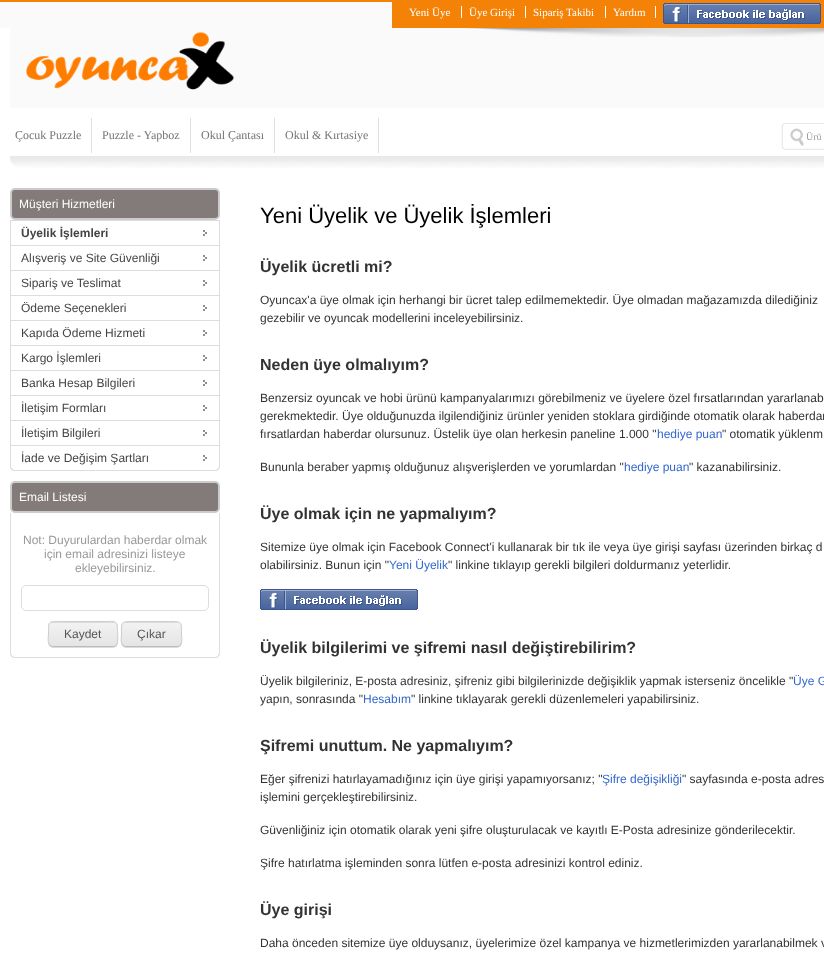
<svg xmlns="http://www.w3.org/2000/svg" width="824" height="954" viewBox="0 0 824 954">
  <style>
    .t1 { font: 11px Liberation Serif; fill: #fff; }
    .t2 { font: 12px Liberation Serif; fill: #747474; }
    .t3 { font: 10px Liberation Serif; fill: #999; }
    .t4 { font: 12px Liberation Sans; fill: #fff; }
    .t5 { font: bold 12px Liberation Sans; fill: #444; }
    .t6 { font: 12px Liberation Sans; fill: #444; }
    .t7 { font: 12px Liberation Sans; fill: #999; }
    .t8 { font: 12px Liberation Sans; fill: #555; }
    .t9 { font: 22px Liberation Sans; fill: #000; }
    .t10 { font: bold 16px Liberation Sans; fill: #333; }
    .t11 { font: 12px Liberation Sans; fill: #333; }
    .t12 { font: 12px Liberation Sans; fill: #36c; }
  </style>
  <rect width="100%" height="100%" fill="#fff"/>
  <image x="16" y="167" width="4" height="1" href="images/1.png"/>
  <image x="0" y="0" width="392" height="28" href="images/2.png"/>
  <rect x="10" y="28" width="814" height="80" fill="#fafafa"/>
  <image x="466" y="28" width="358" height="9" href="images/3.png"/>
  <rect x="392" y="0" width="432" height="28" fill="#f38207"/>
  <text x="409" y="16" class="t1">Yeni Üye</text>
  <text x="469" y="16" class="t1">Üye Girişi</text>
  <rect x="461" y="6" width="1" height="12" fill="#fff"/>
  <text x="533" y="16" class="t1">Sipariş Takibi</text>
  <rect x="525" y="6" width="1" height="12" fill="#fff"/>
  <text x="613" y="16" class="t1">Yardım</text>
  <rect x="605" y="6" width="1" height="12" fill="#fff"/>
  <rect x="655" y="6" width="1" height="12" fill="#fff"/>
  <image x="663" y="3" width="158" height="21" href="images/4.png"/>
  <image x="26" y="32" width="208" height="58" href="images/5.png"/>
  <image x="10" y="156" width="814" height="12" href="images/6.png"/>
  <rect x="91" y="118" width="1" height="35" fill="#e0e0e0"/>
  <text x="15" y="139" class="t2">Çocuk Puzzle</text>
  <rect x="190" y="118" width="1" height="35" fill="#e0e0e0"/>
  <text x="102" y="139" class="t2">Puzzle - Yapboz</text>
  <rect x="274" y="118" width="1" height="35" fill="#e0e0e0"/>
  <text x="201" y="139" class="t2">Okul Çantası</text>
  <rect x="378" y="118" width="1" height="35" fill="#e0e0e0"/>
  <text x="285" y="139" class="t2">Okul &amp; Kırtasiye</text>
  <image x="781" y="123" width="43" height="27" href="images/7.png"/>
  <text x="806" y="140" class="t3">Ürü</text>
  <rect x="11" y="189" width="208" height="30" rx="4" fill="#827b7a" stroke="#ccc" stroke-width="2"/>
  <text x="19" y="208" class="t4">Müşteri Hizmetleri</text>
  <path d="M10 220H220V466C220 469 218 471 215 471H15C12 471 10 469 10 466ZM11 220H219V466C219 468 217 470 215 470H15C13 470 11 468 11 466Z" fill="#ddd" fill-rule="evenodd"/>
  <rect x="11" y="220" width="209" height="1" fill="#ddd"/>
  <image x="203" y="230" width="4" height="6" href="images/8.png"/>
  <text x="21" y="237" class="t5">Üyelik İşlemleri</text>
  <rect x="11" y="245" width="209" height="1" fill="#ddd"/>
  <image x="203" y="255" width="4" height="6" href="images/8.png"/>
  <text x="21" y="262" class="t6">Alışveriş ve Site Güvenliği</text>
  <rect x="11" y="270" width="209" height="1" fill="#ddd"/>
  <image x="203" y="280" width="4" height="6" href="images/8.png"/>
  <text x="21" y="287" class="t6">Sipariş ve Teslimat</text>
  <rect x="11" y="295" width="209" height="1" fill="#ddd"/>
  <image x="203" y="305" width="4" height="6" href="images/8.png"/>
  <text x="21" y="312" class="t6">Ödeme Seçenekleri</text>
  <rect x="11" y="320" width="209" height="1" fill="#ddd"/>
  <image x="203" y="330" width="4" height="6" href="images/8.png"/>
  <text x="21" y="337" class="t6">Kapıda Ödeme Hizmeti</text>
  <rect x="11" y="345" width="209" height="1" fill="#ddd"/>
  <image x="203" y="355" width="4" height="6" href="images/8.png"/>
  <text x="21" y="362" class="t6">Kargo İşlemleri</text>
  <rect x="11" y="370" width="209" height="1" fill="#ddd"/>
  <image x="203" y="380" width="4" height="6" href="images/8.png"/>
  <text x="21" y="387" class="t6">Banka Hesap Bilgileri</text>
  <rect x="11" y="395" width="209" height="1" fill="#ddd"/>
  <image x="203" y="405" width="4" height="6" href="images/8.png"/>
  <text x="21" y="412" class="t6">İletişim Formları</text>
  <rect x="11" y="420" width="209" height="1" fill="#ddd"/>
  <image x="203" y="430" width="4" height="6" href="images/8.png"/>
  <text x="21" y="437" class="t6">İletişim Bilgileri</text>
  <rect x="11" y="445" width="209" height="1" fill="#ddd"/>
  <image x="203" y="455" width="4" height="6" href="images/8.png"/>
  <text x="21" y="462" class="t6">İade ve Değişim Şartları</text>
  <rect x="11" y="482" width="208" height="30" rx="4" fill="#827b7a" stroke="#ccc" stroke-width="2"/>
  <text x="19" y="501" class="t4">Email Listesi</text>
  <path d="M10 513H220V653C220 656 218 658 215 658H15C12 658 10 656 10 653ZM11 513H219V653C219 655 217 657 215 657H15C13 657 11 655 11 653Z" fill="#ddd" fill-rule="evenodd"/>
  <text x="23" y="544" class="t7">Not: Duyurulardan haberdar olmak</text>
  <text x="44" y="558" class="t7">için email adresinizi listeye</text>
  <text x="75" y="572" class="t7">ekleyebilirsiniz.</text>
  <rect x="21.5" y="585.5" width="187" height="25" rx="4.5" fill="none" stroke="#ddd"/>
  <rect x="48" y="622" width="70" height="26" rx="5" fill="#ddd" filter="blur(0.5px)"/>
  <image x="48" y="623" width="70" height="24" href="images/9.png"/>
  <path d="M116 645C115.5 646 114 646.5 113 646.5H53C52 646.5 50.5 646 50 645" fill="none" stroke="#bbb"/>
  <path d="M50 645C47 642.5 48.5 637 48.5 634C48.5 620 48 621.5 63 621.5H103C115.5 621.5 117.5 619.5 117.5 631.5C117.5 634.5 119 642.5 116 645" fill="none" stroke="#ccc"/>
  <text x="64" y="638" class="t8">Kaydet</text>
  <rect x="121" y="622" width="61" height="26" rx="5" fill="#ddd" filter="blur(0.5px)"/>
  <image x="121" y="623" width="61" height="24" href="images/10.png"/>
  <path d="M180 645C179.5 646 178 646.5 177 646.5H126C125 646.5 123.5 646 123 645" fill="none" stroke="#bbb"/>
  <path d="M123 645C120 642.5 121.5 637 121.5 634C121.5 621 121 621.5 134.5 621.5H168.5C182 621.5 181.5 621 181.5 634C181.5 637 183 642.5 180 645" fill="none" stroke="#ccc"/>
  <text x="137" y="638" class="t8">Çıkar</text>
  <text x="260" y="223" class="t9">Yeni Üyelik ve Üyelik İşlemleri</text>
  <text x="260" y="272" class="t10">Üyelik ücretli mi?</text>
  <text x="260" y="304" class="t11">Oyuncax'a üye olmak için herhangi bir ücret talep edilmemektedir. Üye olmadan mağazamızda dilediğiniz</text>
  <text x="260" y="322" class="t11">gezebilir ve oyuncak modellerini inceleyebilirsiniz.</text>
  <text x="260" y="370" class="t10">Neden üye olmalıyım?</text>
  <text x="260" y="402" class="t11">Benzersiz oyuncak ve hobi ürünü kampanyalarımızı görebilmeniz ve üyelere özel fırsatlarından yararlanab</text>
  <text x="260" y="420" class="t11">gerekmektedir. Üye olduğunuzda ilgilendiğiniz ürünler yeniden stoklara girdiğinde otomatik olarak haberdar</text>
  <text x="260" y="438" class="t11">fırsatlardan haberdar olursunuz. Üstelik üye olan herkesin paneline 1.000 "</text>
  <text x="657" y="438" class="t12">hediye puan</text>
  <text x="722" y="438" class="t11">" otomatik yüklenm</text>
  <text x="260" y="471" class="t11">Bununla beraber yapmış olduğunuz alışverişlerden ve yorumlardan "</text>
  <text x="624" y="471" class="t12">hediye puan</text>
  <text x="689" y="471" class="t11">" kazanabilirsiniz.</text>
  <text x="260" y="519" class="t10">Üye olmak için ne yapmalıyım?</text>
  <text x="260" y="551" class="t11">Sitemize üye olmak için Facebook Connect'i kullanarak bir tık ile veya üye girişi sayfası üzerinden birkaç d</text>
  <text x="260" y="569" class="t11">olabilirsiniz. Bunun için "</text>
  <text x="389" y="569" class="t12">Yeni Üyelik</text>
  <text x="448" y="569" class="t11">" linkine tıklayıp gerekli bilgileri doldurmanız yeterlidir.</text>
  <image x="260" y="589" width="158" height="21" href="images/11.png"/>
  <text x="260" y="653" class="t10">Üyelik bilgilerimi ve şifremi nasıl değiştirebilirim?</text>
  <text x="260" y="685" class="t11">Üyelik bilgileriniz, E-posta adresiniz, şifreniz gibi bilgilerinizde değişiklik yapmak isterseniz öncelikle "</text>
  <text x="793" y="685" class="t12">Üye G</text>
  <text x="260" y="703" class="t11">yapın, sonrasında "</text>
  <text x="363" y="703" class="t12">Hesabım</text>
  <text x="411" y="703" class="t11">" linkine tıklayarak gerekli düzenlemeleri yapabilirsiniz.</text>
  <text x="260" y="751" class="t10">Şifremi unuttum. Ne yapmalıyım?</text>
  <text x="260" y="783" class="t11">Eğer şifrenizi hatırlayamadığınız için üye girişi yapamıyorsanız; "</text>
  <text x="602" y="783" class="t12">Şifre değişikliği</text>
  <text x="682" y="783" class="t11">" sayfasında e-posta adres</text>
  <text x="260" y="801" class="t11">işlemini gerçekleştirebilirsiniz.</text>
  <text x="260" y="834" class="t11">Güvenliğiniz için otomatik olarak yeni şifre oluşturulacak ve kayıtlı E-Posta adresinize gönderilecektir.</text>
  <text x="260" y="867" class="t11">Şifre hatırlatma işleminden sonra lütfen e-posta adresinizi kontrol ediniz.</text>
  <text x="260" y="915" class="t10">Üye girişi</text>
  <text x="260" y="947" class="t11">Daha önceden sitemize üye olduysanız, üyelerimize özel kampanya ve hizmetlerimizden yararlanabilmek v</text>
</svg>
